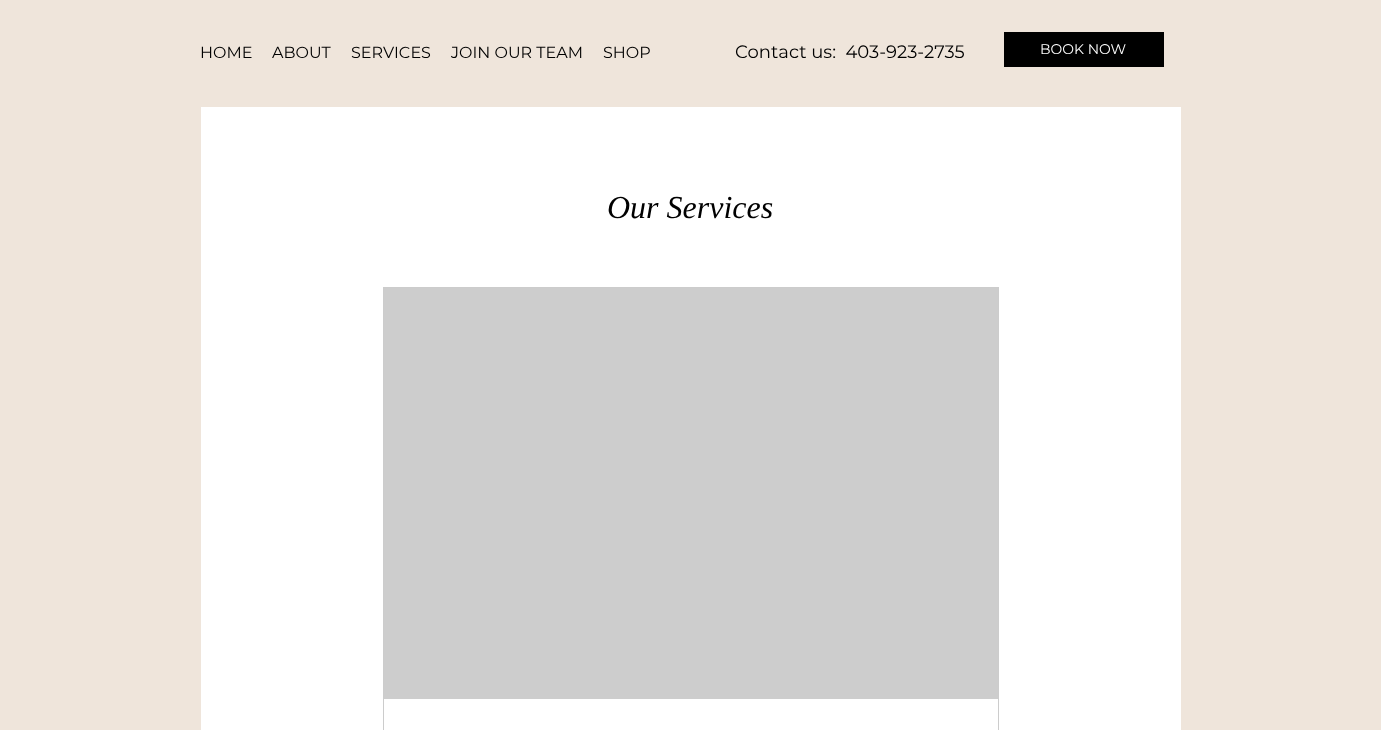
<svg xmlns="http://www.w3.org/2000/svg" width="1381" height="730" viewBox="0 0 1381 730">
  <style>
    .t1 { font: 16px Montserrat; fill: #000; }
    .t2 { font: 18px Montserrat; fill: #000; }
    .t3 { font: 14px Montserrat; fill: #fff; }
    .t4 { font: italic 32px Liberation Serif; fill: #000; }
  </style>
  <rect width="100%" height="100%" fill="#efe5db"/>
  <text x="200" y="58" class="t1">HOME</text>
  <text x="272" y="58" class="t1">ABOUT</text>
  <text x="351" y="58" class="t1">SERVICES</text>
  <text x="451" y="58" class="t1">JOIN OUR TEAM</text>
  <text x="603" y="58" class="t1">SHOP</text>
  <text x="735" y="58" class="t2" xml:space="preserve">Contact us:  403-923-2735</text>
  <rect x="1004" y="32" width="160" height="35" fill="#000"/>
  <text x="1040" y="54" class="t3">BOOK NOW</text>
  <rect x="201" y="107" width="980" height="623" fill="#fff"/>
  <text x="607" y="218" class="t4">Our Services</text>
  <rect x="383.5" y="287.5" width="615" height="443" fill="none" stroke="#ccc"/>
  <rect x="384" y="288" width="614" height="411" fill="#cdcdcd"/>
</svg>
